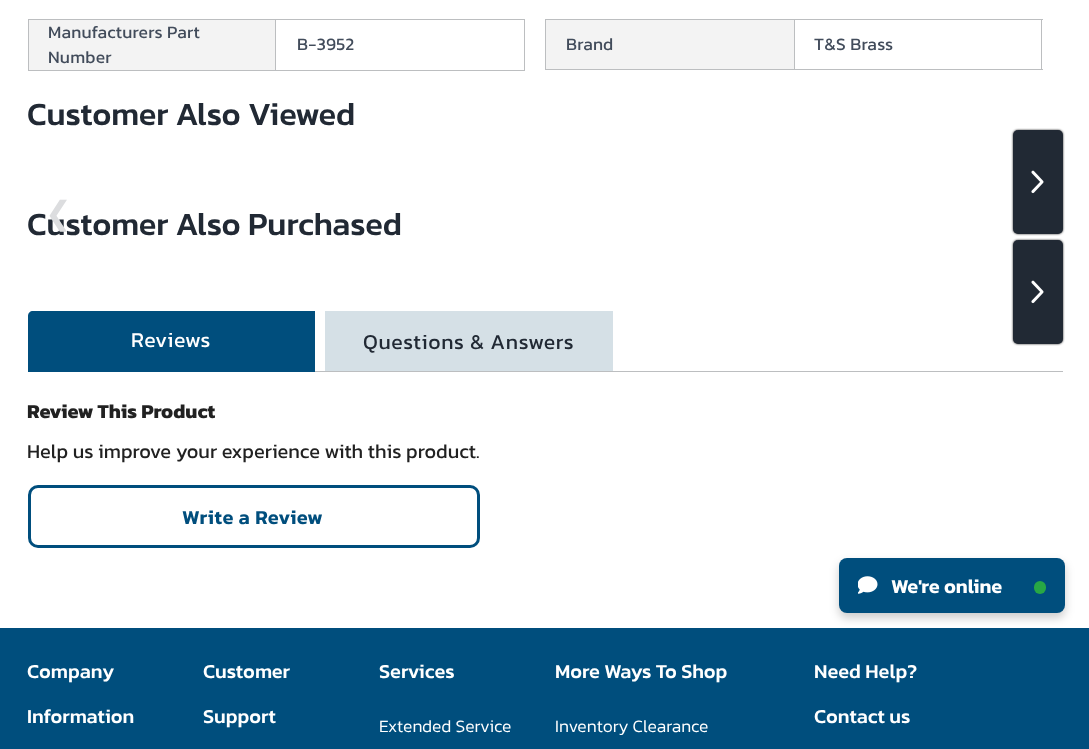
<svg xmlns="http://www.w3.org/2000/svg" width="1089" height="749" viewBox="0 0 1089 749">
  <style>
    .t1 { font: 17.5px Kanit; letter-spacing: 0.2px; fill: #424c5b; }
    .t2 { font: 500 32.5px Kanit; fill: #212934; }
    .t3 { font: 32px DejaVu Sans; fill: #dcdddf; }
    .t4 { font: 21.25px Kanit; letter-spacing: 0.6px; fill: #fff; }
    .t5 { font: 21.25px Kanit; letter-spacing: 0.6px; fill: #212934; }
    .t6 { font: bold 20px Kanit; fill: #212121; }
    .t7 { font: 20px Kanit; fill: #212121; }
    .t8 { font: 600 20px Kanit; letter-spacing: 0.5px; fill: #004e7d; }
    .t9 { font: 500 20px Kanit; fill: #fff; }
    .t10 { font: 300 17.5px Kanit; fill: #fff; }
    .t11 { font: 600 20px Kanit; fill: #fff; }
  </style>
  <rect width="100%" height="100%" fill="#fff"/>
  <rect x="29" y="20" width="246" height="50" fill="#f3f3f3"/>
  <rect x="275" y="19" width="250" height="1" fill="#bcbec0"/>
  <rect x="524" y="19" width="1" height="52" fill="#bcbec0"/>
  <rect x="275" y="70" width="250" height="1" fill="#bcbec0"/>
  <rect x="275" y="19" width="1" height="52" fill="#bcbec0"/>
  <rect x="28" y="19" width="248" height="1" fill="#bcbec0"/>
  <rect x="28" y="70" width="248" height="1" fill="#bcbec0"/>
  <rect x="28" y="19" width="1" height="52" fill="#bcbec0"/>
  <text x="48" y="38" class="t1">Manufacturers Part</text>
  <text x="48" y="63" class="t1">Number</text>
  <text x="297" y="50" class="t1">B-3952</text>
  <rect x="546" y="20" width="248" height="49" fill="#f3f3f3"/>
  <rect x="794" y="19" width="249" height="1" fill="#bcbec0"/>
  <rect x="1041" y="19" width="1" height="51" fill="#bcbec0"/>
  <rect x="794" y="69" width="249" height="1" fill="#bcbec0"/>
  <rect x="794" y="19" width="1" height="51" fill="#bcbec0"/>
  <rect x="545" y="19" width="250" height="1" fill="#bcbec0"/>
  <rect x="545" y="69" width="250" height="1" fill="#bcbec0"/>
  <rect x="545" y="19" width="1" height="51" fill="#bcbec0"/>
  <text x="566" y="50" class="t1">Brand</text>
  <text x="814" y="50" class="t1">T&amp;S Brass</text>
  <text x="27" y="125" class="t2">Customer Also Viewed</text>
  <text x="27" y="235" class="t2">Customer Also Purchased</text>
  <text x="45" y="224" class="t3">❮</text>
  <rect x="1013" y="130" width="50" height="104" rx="5" fill="#333" filter="blur(1px)"/>
  <rect x="1013" y="130" width="50" height="104" rx="5" fill="#212934"/>
  <image x="1031" y="170" width="13" height="24" href="images/1.png"/>
  <rect x="1013" y="240" width="50" height="104" rx="5" fill="#333" filter="blur(1px)"/>
  <rect x="1013" y="240" width="50" height="104" rx="5" fill="#212934"/>
  <image x="1031" y="280" width="13" height="24" href="images/1.png"/>
  <rect x="315" y="371" width="748" height="1" fill="#bcbec0"/>
  <path d="M33 311H315V371H28V316C28 313 30 311 33 311Z" fill="#004e7d"/>
  <rect x="28" y="371" width="287" height="1" fill="#004e7d"/>
  <text x="131" y="347" class="t4">Reviews</text>
  <rect x="325" y="311" width="288" height="60" fill="#d5e0e6"/>
  <text x="363" y="349" class="t5">Questions &amp; Answers</text>
  <text x="27" y="418" class="t6">Review This Product</text>
  <text x="27" y="458" class="t7">Help us improve your experience with this product.</text>
  <rect x="29.5" y="486.5" width="449" height="60" rx="8.5" fill="none" stroke="#004e7d" stroke-width="3"/>
  <text x="182" y="524" class="t8">Write a Review</text>
  <rect x="0" y="628" width="1089" height="121" fill="#004e7d"/>
  <text x="27" y="678" class="t9">Company</text>
  <text x="27" y="723" class="t9">Information</text>
  <text x="203" y="678" class="t9">Customer</text>
  <text x="203" y="723" class="t9">Support</text>
  <text x="379" y="678" class="t9">Services</text>
  <text x="379" y="732" class="t10">Extended Service</text>
  <text x="555" y="678" class="t9">More Ways To Shop</text>
  <text x="555" y="732" class="t10">Inventory Clearance</text>
  <text x="814" y="678" class="t9">Need Help?</text>
  <text x="814" y="723" class="t9">Contact us</text>
  <rect x="839" y="563" width="226" height="55" rx="8" fill="#00000033" filter="blur(5px)"/>
  <rect x="839" y="558" width="226" height="55" rx="8" fill="#004e7d"/>
  <image x="858" y="576" width="20" height="18" href="images/2.png"/>
  <text x="891" y="593" class="t11">We're online</text>
  <rect x="1034" y="581" width="12" height="13" rx="6" fill="#28a745"/>
</svg>
